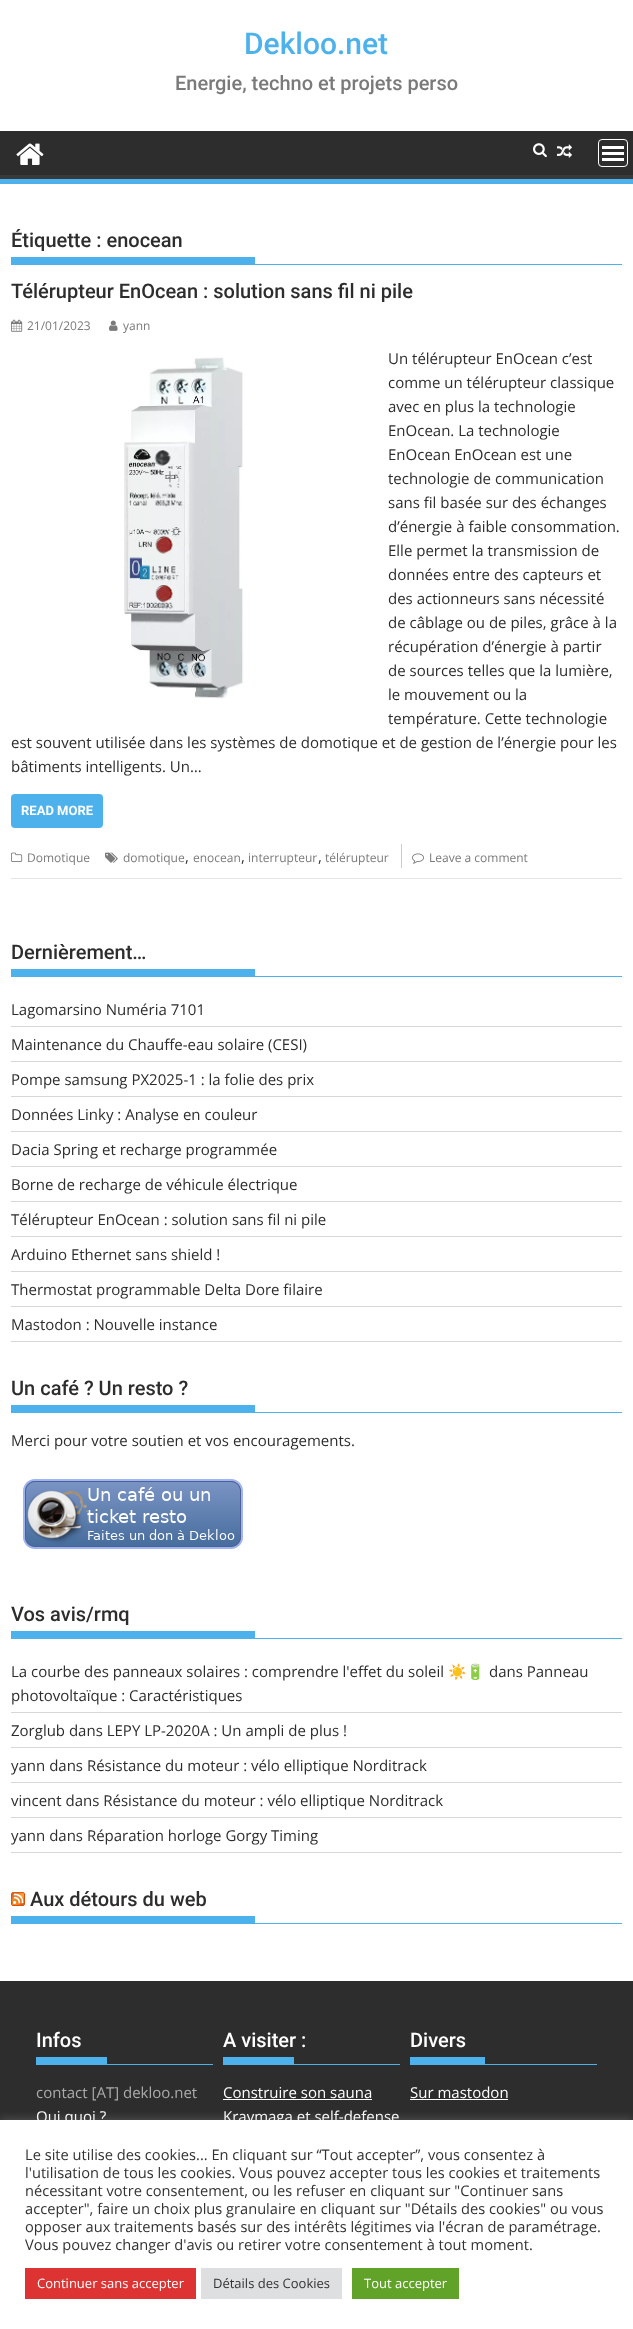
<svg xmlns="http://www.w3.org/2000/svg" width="633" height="2329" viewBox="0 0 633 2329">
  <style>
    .t1 { font: 500 30px Roboto; fill: #4db2ec; }
    .t2 { font: 500 20px Roboto; fill: #7a7a7a; }
    .t3 { font: 500 20px Roboto; fill: #2d2d2d; }
    .t4 { font: 12px Open Sans; fill: #7a7a7a; }
    .t5 { font: 15px Open Sans; fill: #2d2d2d; }
    .t6 { font: bold 13px Roboto; fill: #fff; }
    .t7 { font: 15px Noto Color Emoji; fill: #2d2d2d; }
    .t8 { font: 500 20px Roboto; fill: #fff; }
    .t9 { font: 15px Open Sans; fill: #ababab; }
    .t10 { font: 15px Open Sans; fill: #fff; }
    .t11 { font: 14.65px Open Sans; fill: #333; }
    .t12 { font: 13px Open Sans; fill: #fff; }
    .t13 { font: 13px Open Sans; fill: #333; }
  </style>
  <defs>
    <clipPath id="clip1"><rect x="0" y="131" width="633" height="48"/></clipPath>
  </defs>
  <rect width="100%" height="100%" fill="#fff"/>
  <text x="244" y="54" class="t1">Dekloo.net</text>
  <text x="175" y="90" class="t2">Energie, techno et projets perso</text>
  <rect x="0" y="131" width="633" height="44" fill="#2d2d2d"/>
  <g clip-path="url(#clip1)">
    <path d="M-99 32H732V278H-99ZM-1 125H632C633 125 633 125 633 126V174C633 175 633 175 632 175H-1C-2 175-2 175-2 174V126C-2 125-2 125-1 125Z" fill="#393939" fill-rule="evenodd"/>
  </g>
  <rect x="0" y="179" width="633" height="5" fill="#4db2ec"/>
  <image x="16" y="143" width="28" height="22" href="images/1.png"/>
  <image x="533" y="143" width="14" height="15" href="images/2.png"/>
  <image x="557" y="144" width="15" height="14" href="images/3.png"/>
  <rect x="598.5" y="139.5" width="29" height="27" rx="3.5" fill="none" stroke="#fff"/>
  <rect x="602" y="158" width="22" height="3" fill="#fff"/>
  <rect x="602" y="152" width="22" height="3" fill="#fff"/>
  <rect x="602" y="146" width="22" height="3" fill="#fff"/>
  <rect x="11" y="264" width="611" height="1" fill="#4db2ec"/>
  <text x="11" y="247" class="t3">Étiquette : enocean</text>
  <rect x="11" y="257" width="244" height="7" fill="#4db2ec"/>
  <rect x="11" y="878" width="611" height="1" fill="#e5e5e5"/>
  <text x="11" y="298" class="t3">Télérupteur EnOcean : solution sans fil ni pile</text>
  <image x="11" y="319" width="12" height="13" href="images/4.png"/>
  <text x="27" y="330" class="t4">21/01/2023</text>
  <image x="109" y="320" width="9" height="11" href="images/5.png"/>
  <text x="123" y="330" class="t4">yann</text>
  <text x="388" y="364" class="t5">Un télérupteur EnOcean c’est</text>
  <text x="388" y="388" class="t5">comme un télérupteur classique</text>
  <text x="388" y="412" class="t5">avec en plus la technologie</text>
  <text x="388" y="436" class="t5">EnOcean. La technologie</text>
  <text x="388" y="460" class="t5">EnOcean EnOcean est une</text>
  <text x="388" y="484" class="t5">technologie de communication</text>
  <text x="388" y="508" class="t5">sans fil basée sur des échanges</text>
  <text x="388" y="532" class="t5">d’énergie à faible consommation.</text>
  <text x="388" y="556" class="t5">Elle permet la transmission de</text>
  <text x="388" y="580" class="t5">données entre des capteurs et</text>
  <text x="388" y="604" class="t5">des actionneurs sans nécessité</text>
  <text x="388" y="628" class="t5">de câblage ou de piles, grâce à la</text>
  <text x="388" y="652" class="t5">récupération d’énergie à partir</text>
  <text x="388" y="676" class="t5">de sources telles que la lumière,</text>
  <text x="388" y="700" class="t5">le mouvement ou la</text>
  <text x="388" y="724" class="t5">température. Cette technologie</text>
  <text x="11" y="748" class="t5">est souvent utilisée dans les systèmes de domotique et de gestion de l’énergie pour les</text>
  <text x="11" y="772" class="t5">bâtiments intelligents. Un…</text>
  <rect x="11" y="794" width="92" height="34" rx="4" fill="#4db2ec"/>
  <text x="21" y="815" class="t6">READ MORE</text>
  <image x="124" y="357" width="120" height="342" href="images/6.png"/>
  <image x="11" y="852" width="12" height="10" href="images/7.png"/>
  <text x="27" y="862" class="t4">Domotique</text>
  <image x="105" y="852" width="13" height="11" href="images/8.png"/>
  <text x="123" y="862" class="t4">domotique</text>
  <text x="185" y="862" class="t5">,</text>
  <text x="193" y="862" class="t4">enocean</text>
  <text x="241" y="862" class="t5">,</text>
  <text x="248" y="862" class="t4">interrupteur</text>
  <text x="318" y="862" class="t5">,</text>
  <text x="325" y="862" class="t4">télérupteur</text>
  <rect x="401" y="844" width="1" height="24" fill="#ccc"/>
  <image x="412" y="853" width="12" height="11" href="images/9.png"/>
  <text x="429" y="862" class="t4">Leave a comment</text>
  <rect x="11" y="976" width="611" height="1" fill="#4db2ec"/>
  <text x="11" y="959" class="t3">Dernièrement…</text>
  <rect x="11" y="969" width="244" height="7" fill="#4db2ec"/>
  <rect x="11" y="1026" width="611" height="1" fill="#d7d7d7"/>
  <text x="11" y="1015" class="t5">Lagomarsino Numéria 7101</text>
  <rect x="11" y="1061" width="611" height="1" fill="#d7d7d7"/>
  <text x="11" y="1050" class="t5">Maintenance du Chauffe-eau solaire (CESI)</text>
  <rect x="11" y="1096" width="611" height="1" fill="#d7d7d7"/>
  <text x="11" y="1085" class="t5">Pompe samsung PX2025-1 : la folie des prix</text>
  <rect x="11" y="1131" width="611" height="1" fill="#d7d7d7"/>
  <text x="11" y="1120" class="t5">Données Linky : Analyse en couleur</text>
  <rect x="11" y="1166" width="611" height="1" fill="#d7d7d7"/>
  <text x="11" y="1155" class="t5">Dacia Spring et recharge programmée</text>
  <rect x="11" y="1201" width="611" height="1" fill="#d7d7d7"/>
  <text x="11" y="1190" class="t5">Borne de recharge de véhicule électrique</text>
  <rect x="11" y="1236" width="611" height="1" fill="#d7d7d7"/>
  <text x="11" y="1225" class="t5">Télérupteur EnOcean : solution sans fil ni pile</text>
  <rect x="11" y="1271" width="611" height="1" fill="#d7d7d7"/>
  <text x="11" y="1260" class="t5">Arduino Ethernet sans shield !</text>
  <rect x="11" y="1306" width="611" height="1" fill="#d7d7d7"/>
  <text x="11" y="1295" class="t5">Thermostat programmable Delta Dore filaire</text>
  <rect x="11" y="1341" width="611" height="1" fill="#d7d7d7"/>
  <text x="11" y="1330" class="t5">Mastodon : Nouvelle instance</text>
  <rect x="11" y="1412" width="611" height="1" fill="#4db2ec"/>
  <text x="11" y="1395" class="t3">Un café ? Un resto ?</text>
  <rect x="11" y="1405" width="244" height="7" fill="#4db2ec"/>
  <text x="11" y="1446" class="t5">Merci pour votre soutien et vos encouragements.</text>
  <image x="23" y="1479" width="220" height="70" href="images/10.png"/>
  <rect x="11" y="1638" width="611" height="1" fill="#4db2ec"/>
  <text x="11" y="1621" class="t3">Vos avis/rmq</text>
  <rect x="11" y="1631" width="244" height="7" fill="#4db2ec"/>
  <rect x="11" y="1712" width="611" height="1" fill="#d7d7d7"/>
  <text x="11" y="1677" class="t5">La courbe des panneaux solaires : comprendre l'effet du soleil</text>
  <text x="448" y="1677" class="t7">☀️🔋</text>
  <text x="489" y="1677" class="t5">dans Panneau</text>
  <text x="11" y="1701" class="t5">photovoltaïque : Caractéristiques</text>
  <rect x="11" y="1747" width="611" height="1" fill="#d7d7d7"/>
  <text x="11" y="1736" class="t5">Zorglub dans LEPY LP-2020A : Un ampli de plus !</text>
  <rect x="11" y="1782" width="611" height="1" fill="#d7d7d7"/>
  <text x="11" y="1771" class="t5">yann dans Résistance du moteur : vélo elliptique Norditrack</text>
  <rect x="11" y="1817" width="611" height="1" fill="#d7d7d7"/>
  <text x="11" y="1806" class="t5">vincent dans Résistance du moteur : vélo elliptique Norditrack</text>
  <rect x="11" y="1852" width="611" height="1" fill="#d7d7d7"/>
  <text x="11" y="1841" class="t5">yann dans Réparation horloge Gorgy Timing</text>
  <rect x="11" y="1923" width="611" height="1" fill="#4db2ec"/>
  <image x="11" y="1892" width="14" height="14" href="images/11.png"/>
  <text x="30" y="1906" class="t3">Aux détours du web</text>
  <rect x="11" y="1916" width="244" height="7" fill="#4db2ec"/>
  <rect x="0" y="1981" width="633" height="139" fill="#2d2d2d"/>
  <rect x="36" y="2064" width="177" height="1" fill="#4db2ec"/>
  <text x="36" y="2047" class="t8">Infos</text>
  <rect x="36" y="2057" width="71" height="7" fill="#4db2ec"/>
  <text x="36" y="2098" class="t9">contact [AT] dekloo.net</text>
  <text x="36" y="2122" class="t10">Qui quoi ?</text>
  <rect x="223" y="2064" width="177" height="1" fill="#4db2ec"/>
  <text x="223" y="2047" class="t8">A visiter :</text>
  <rect x="223" y="2057" width="71" height="7" fill="#4db2ec"/>
  <text x="223" y="2098" class="t10">Construire son sauna</text>
  <rect x="223" y="2099" width="149" height="1" fill="#fff"/>
  <text x="223" y="2122" class="t10">Kravmaga et self-defense</text>
  <rect x="410" y="2064" width="187" height="1" fill="#4db2ec"/>
  <text x="410" y="2047" class="t8">Divers</text>
  <rect x="410" y="2057" width="75" height="7" fill="#4db2ec"/>
  <text x="410" y="2098" class="t10">Sur mastodon</text>
  <rect x="410" y="2099" width="98" height="1" fill="#fff"/>
  <rect x="0" y="2119" width="633" height="209" fill="#acabab4d" filter="blur(5px)"/>
  <rect x="0" y="2120" width="633" height="209" fill="#fff"/>
  <text x="25" y="2160" class="t11">Le site utilise des cookies... En cliquant sur “Tout accepter”, vous consentez à</text>
  <text x="25" y="2178" class="t11">l'utilisation de tous les cookies. Vous pouvez accepter tous les cookies et traitements</text>
  <text x="25" y="2196" class="t11">nécessitant votre consentement, ou les refuser en cliquant sur "Continuer sans</text>
  <text x="25" y="2214" class="t11">accepter", faire un choix plus granulaire en cliquant sur "Détails des cookies" ou vous</text>
  <text x="25" y="2232" class="t11">opposer aux traitements basés sur des intérêts légitimes via l'écran de paramétrage.</text>
  <text x="25" y="2250" class="t11">Vous pouvez changer d'avis ou retirer votre consentement à tout moment.</text>
  <rect x="25" y="2268" width="171" height="31" fill="#d33"/>
  <text x="37" y="2288" class="t12">Continuer sans accepter</text>
  <rect x="201" y="2268" width="141" height="31" fill="#dedfe0"/>
  <text x="213" y="2288" class="t13">Détails des Cookies</text>
  <rect x="352" y="2268" width="107" height="31" fill="#61a229"/>
  <text x="364" y="2288" class="t12">Tout accepter</text>
</svg>
